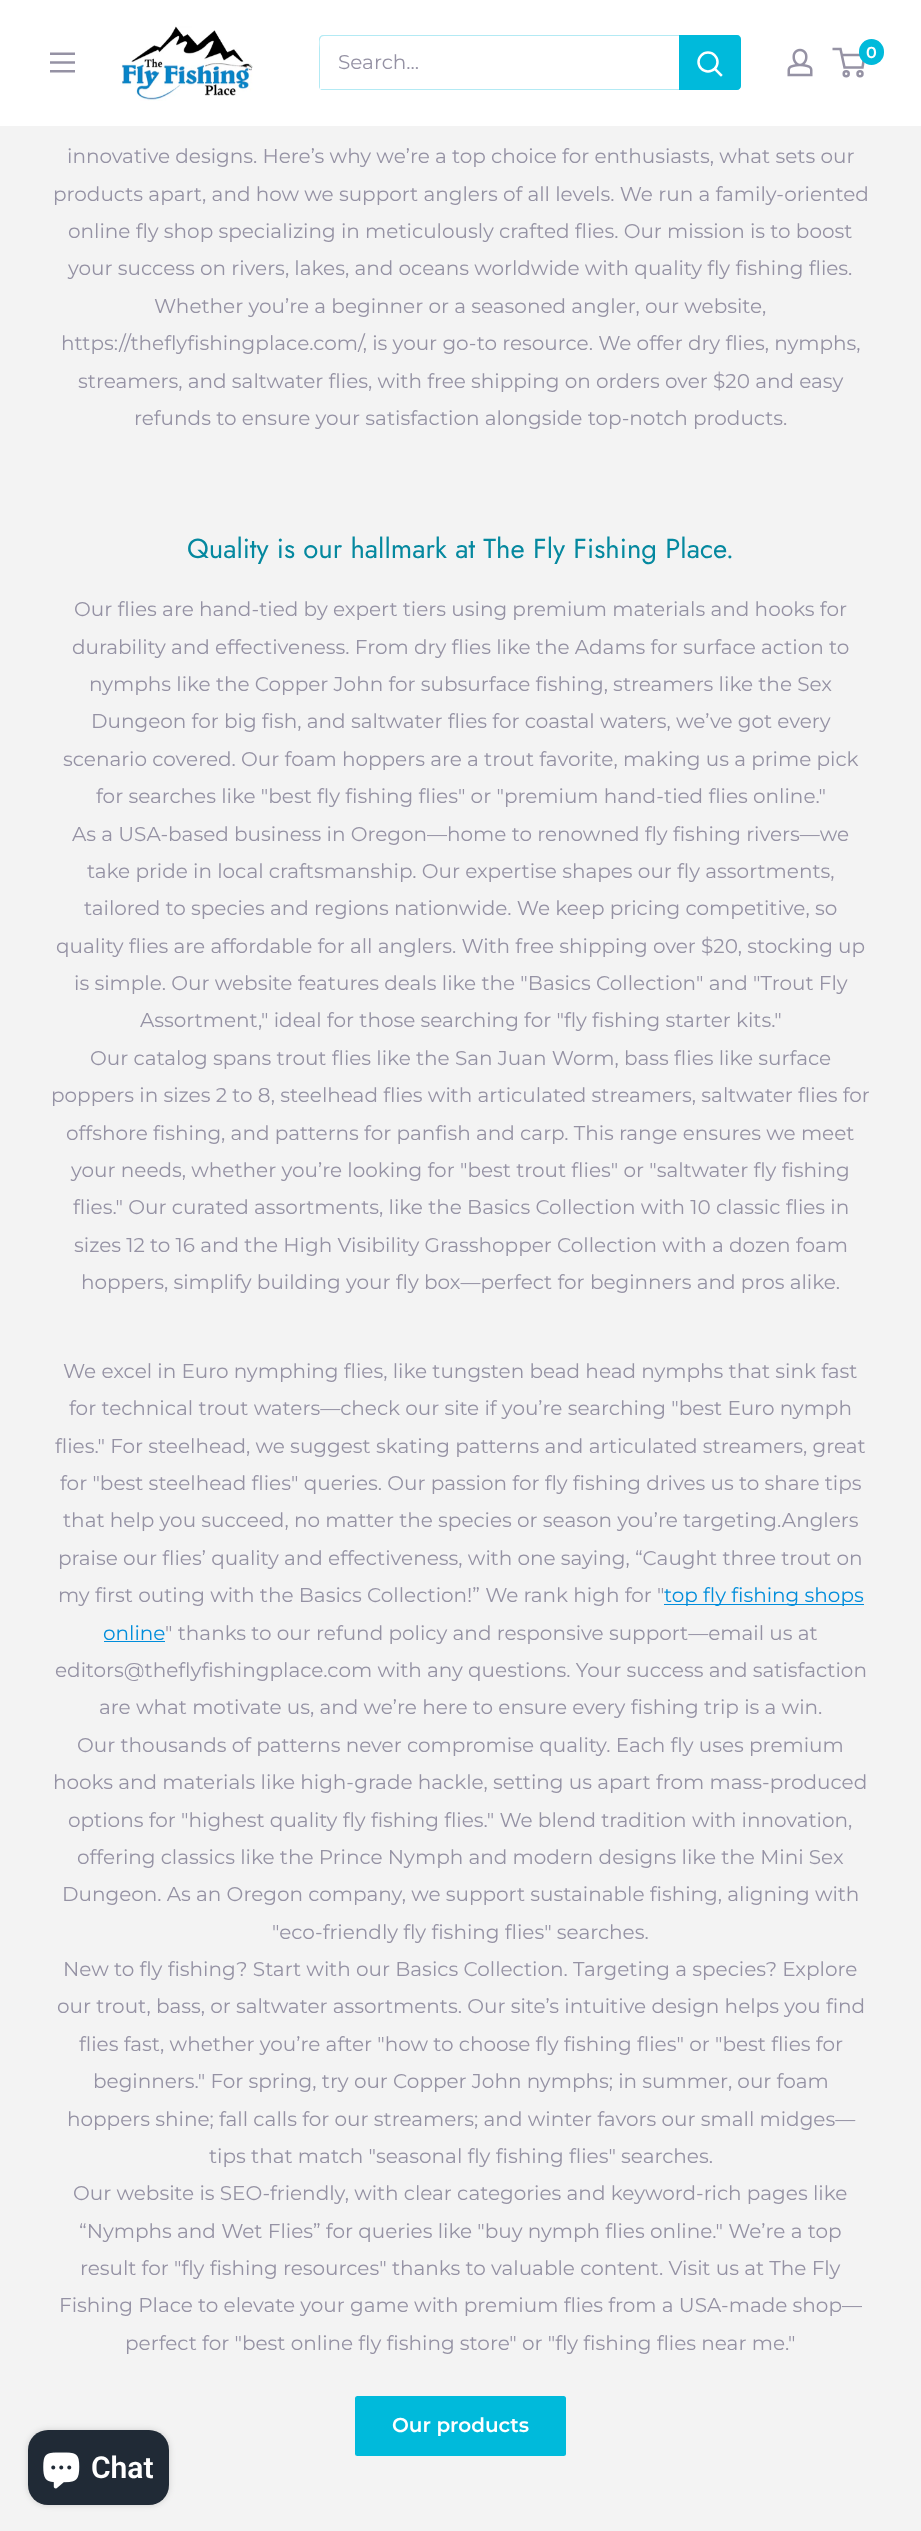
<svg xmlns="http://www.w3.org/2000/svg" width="921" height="2531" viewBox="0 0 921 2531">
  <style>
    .t1 { font: 20px Montserrat; fill: #9592a4; }
    .t2 { font: 600 16px Montserrat; fill: #fff; }
    .t3 { font: 27.5px Jost; fill: #04889f; }
    .t4 { font: 20px Montserrat; fill: #008ddb; }
    .t5 { font: 600 20px Montserrat; fill: #fff; }
    .t6 { font: 600 30px Roboto; fill: #fff; }
  </style>
  <rect width="100%" height="100%" fill="#f3f3f3"/>
  <rect x="0" y="0" width="921" height="126" fill="#fff"/>
  <image x="50" y="52" width="25" height="21" href="images/1.png"/>
  <image x="120" y="26" width="133" height="75" href="images/2.png"/>
  <path d="M320 89C321 90 322 90 323 90H737C739 90 741 88 741 86V39C741 38 740 37 740 36V77C740 80 742 89 736 89Z" fill="#b3eaf4"/>
  <path d="M324 36H740C739 35 738 35 737 35H323C321 35 319 37 319 39V86C319 87 319 88 320 89V48C320 46 318 36 324 36Z" fill="#b3eaf4"/>
  <text x="338" y="69" class="t1">Search...</text>
  <path d="M679 35H737C739 35 741 37 741 39V86C741 88 739 90 737 90H679Z" fill="#00badb"/>
  <path d="M721 75L715 69" fill="none" stroke="#fff" stroke-width="2.5" stroke-linecap="square"/>
  <circle cx="708" cy="62" r="9.5" fill="none" stroke="#fff" stroke-width="2.5"/>
  <image x="787" y="48" width="26" height="29" href="images/3.png"/>
  <circle cx="846.2" cy="73.8" r="2.5" fill="none" stroke="#9592a4" stroke-width="2.5"/>
  <circle cx="860" cy="73.8" r="2.5" fill="none" stroke="#9592a4" stroke-width="2.5"/>
  <path d="M841.5 55H864.5L862.5 67.5H844.5L840.5 49H832.5" fill="none" stroke="#9592a4" stroke-width="2.5"/>
  <rect x="859" y="39" width="25" height="26" rx="12.5" fill="#00badb"/>
  <text x="866" y="58" class="t2">0</text>
  <text x="67" y="163" class="t1">innovative designs. Here’s why we’re a top choice for enthusiasts, what sets our</text>
  <text x="53" y="201" class="t1">products apart, and how we support anglers of all levels. We run a family-oriented</text>
  <text x="68" y="238" class="t1">online fly shop specializing in meticulously crafted flies. Our mission is to boost</text>
  <text x="68" y="275" class="t1">your success on rivers, lakes, and oceans worldwide with quality fly fishing flies.</text>
  <text x="154" y="313" class="t1">Whether you’re a beginner or a seasoned angler, our website,</text>
  <text x="61" y="350" class="t1">https://theflyfishingplace.com/, is your go-to resource. We offer dry flies, nymphs,</text>
  <text x="78" y="388" class="t1">streamers, and saltwater flies, with free shipping on orders over $20 and easy</text>
  <text x="134" y="425" class="t1">refunds to ensure your satisfaction alongside top-notch products.</text>
  <text x="187" y="558" class="t3">Quality is our hallmark at The Fly Fishing Place.</text>
  <text x="74" y="616" class="t1">Our flies are hand-tied by expert tiers using premium materials and hooks for</text>
  <text x="72" y="654" class="t1">durability and effectiveness. From dry flies like the Adams for surface action to</text>
  <text x="89" y="691" class="t1">nymphs like the Copper John for subsurface fishing, streamers like the Sex</text>
  <text x="91" y="728" class="t1">Dungeon for big fish, and saltwater flies for coastal waters, we’ve got every</text>
  <text x="63" y="766" class="t1">scenario covered. Our foam hoppers are a trout favorite, making us a prime pick</text>
  <text x="96" y="803" class="t1">for searches like "best fly fishing flies" or "premium hand-tied flies online."</text>
  <text x="72" y="841" class="t1">As a USA-based business in Oregon—home to renowned fly fishing rivers—we</text>
  <text x="87" y="878" class="t1">take pride in local craftsmanship. Our expertise shapes our fly assortments,</text>
  <text x="84" y="915" class="t1">tailored to species and regions nationwide. We keep pricing competitive, so</text>
  <text x="56" y="953" class="t1">quality flies are affordable for all anglers. With free shipping over $20, stocking up</text>
  <text x="74" y="990" class="t1">is simple. Our website features deals like the "Basics Collection" and "Trout Fly</text>
  <text x="140" y="1027" class="t1">Assortment," ideal for those searching for "fly fishing starter kits."</text>
  <text x="90" y="1065" class="t1">Our catalog spans trout flies like the San Juan Worm, bass flies like surface</text>
  <text x="51" y="1102" class="t1">poppers in sizes 2 to 8, steelhead flies with articulated streamers, saltwater flies for</text>
  <text x="66" y="1140" class="t1">offshore fishing, and patterns for panfish and carp. This range ensures we meet</text>
  <text x="71" y="1177" class="t1">your needs, whether you’re looking for "best trout flies" or "saltwater fly fishing</text>
  <text x="73" y="1214" class="t1">flies." Our curated assortments, like the Basics Collection with 10 classic flies in</text>
  <text x="74" y="1252" class="t1">sizes 12 to 16 and the High Visibility Grasshopper Collection with a dozen foam</text>
  <text x="81" y="1289" class="t1">hoppers, simplify building your fly box—perfect for beginners and pros alike.</text>
  <text x="63" y="1378" class="t1">We excel in Euro nymphing flies, like tungsten bead head nymphs that sink fast</text>
  <text x="69" y="1415" class="t1">for technical trout waters—check our site if you’re searching "best Euro nymph</text>
  <text x="55" y="1453" class="t1">flies." For steelhead, we suggest skating patterns and articulated streamers, great</text>
  <text x="60" y="1490" class="t1">for "best steelhead flies" queries. Our passion for fly fishing drives us to share tips</text>
  <text x="63" y="1527" class="t1">that help you succeed, no matter the species or season you’re targeting.Anglers</text>
  <text x="58" y="1565" class="t1">praise our flies’ quality and effectiveness, with one saying, “Caught three trout on</text>
  <text x="58" y="1602" class="t1">my first outing with the Basics Collection!” We rank high for "</text>
  <rect x="664" y="1604" width="200" height="1" fill="#008ddb"/>
  <text x="664" y="1602" class="t4">top fly fishing shops</text>
  <text x="103" y="1640" class="t4">online</text>
  <rect x="104" y="1641" width="61" height="1" fill="#008ddb"/>
  <text x="165" y="1640" class="t1">" thanks to our refund policy and responsive support—email us at</text>
  <text x="55" y="1677" class="t1">editors@theflyfishingplace.com with any questions. Your success and satisfaction</text>
  <text x="99" y="1714" class="t1">are what motivate us, and we’re here to ensure every fishing trip is a win.</text>
  <text x="77" y="1752" class="t1">Our thousands of patterns never compromise quality. Each fly uses premium</text>
  <text x="53" y="1789" class="t1">hooks and materials like high-grade hackle, setting us apart from mass-produced</text>
  <text x="68" y="1827" class="t1">options for "highest quality fly fishing flies." We blend tradition with innovation,</text>
  <text x="77" y="1864" class="t1">offering classics like the Prince Nymph and modern designs like the Mini Sex</text>
  <text x="62" y="1901" class="t1">Dungeon. As an Oregon company, we support sustainable fishing, aligning with</text>
  <text x="272" y="1939" class="t1">"eco-friendly fly fishing flies" searches.</text>
  <text x="63" y="1976" class="t1">New to fly fishing? Start with our Basics Collection. Targeting a species? Explore</text>
  <text x="57" y="2013" class="t1">our trout, bass, or saltwater assortments. Our site’s intuitive design helps you find</text>
  <text x="79" y="2051" class="t1">flies fast, whether you’re after "how to choose fly fishing flies" or "best flies for</text>
  <text x="93" y="2088" class="t1">beginners." For spring, try our Copper John nymphs; in summer, our foam</text>
  <text x="67" y="2126" class="t1">hoppers shine; fall calls for our streamers; and winter favors our small midges—</text>
  <text x="209" y="2163" class="t1">tips that match "seasonal fly fishing flies" searches.</text>
  <text x="73" y="2200" class="t1">Our website is SEO-friendly, with clear categories and keyword-rich pages like</text>
  <text x="79" y="2238" class="t1">“Nymphs and Wet Flies” for queries like "buy nymph flies online." We’re a top</text>
  <text x="80" y="2275" class="t1">result for "fly fishing resources" thanks to valuable content. Visit us at The Fly</text>
  <text x="59" y="2312" class="t1">Fishing Place to elevate your game with premium flies from a USA-made shop—</text>
  <text x="125" y="2350" class="t1">perfect for "best online fly fishing store" or "fly fishing flies near me."</text>
  <rect x="355" y="2396" width="211" height="60" rx="2.5" fill="#00badb"/>
  <text x="392" y="2432" class="t5">Our products</text>
  <rect x="28" y="2430" width="141" height="75" rx="20" fill="#00000026" filter="blur(3px)"/>
  <rect x="28" y="2430" width="141" height="75" rx="20" fill="#202a36"/>
  <image x="43" y="2452" width="37" height="37" href="images/4.png"/>
  <text x="91" y="2478" class="t6">Chat</text>
</svg>
